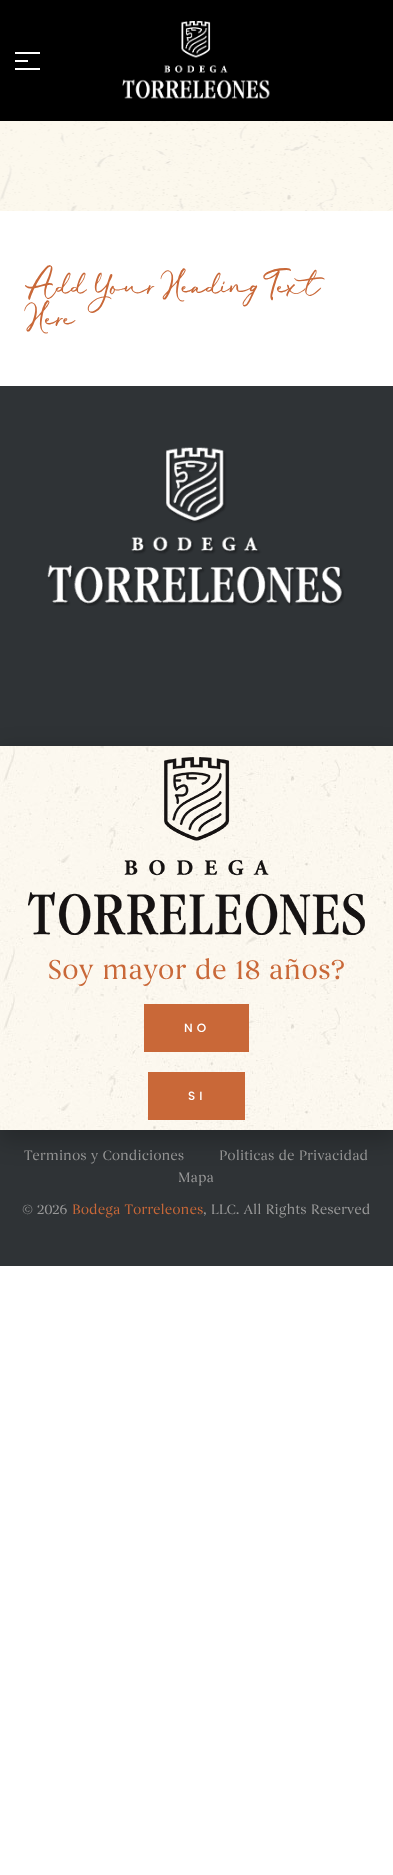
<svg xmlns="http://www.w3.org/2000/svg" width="393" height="1875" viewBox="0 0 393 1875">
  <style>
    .t1 { font: 32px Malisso; fill: #c96838; }
    .t2 { font: 14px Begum; fill: #999; }
    .t3 { font: 14px Begum; fill: #c96838; }
    .t4 { font: 28px Begum; fill: #c96838; }
    .t5 { font: 500 12px Poppins; letter-spacing: 4px; fill: #fff; }
  </style>
  <rect width="100%" height="100%" fill="#fff"/>
  <rect x="0" y="0" width="393" height="121" fill="#000"/>
  <rect x="15" y="52" width="25" height="2" fill="#fff"/>
  <rect x="15" y="60" width="13" height="2" fill="#fff"/>
  <rect x="15" y="68" width="25" height="2" fill="#fff"/>
  <image x="122" y="21" width="148" height="79" href="images/1.png"/>
  <image x="0" y="121" width="393" height="90" href="images/2.png"/>
  <text x="25" y="293" class="t1">Add Your Heading Text</text>
  <text x="25" y="325" class="t1">Here</text>
  <rect x="0" y="386" width="393" height="880" fill="#2f3336"/>
  <image x="47" y="447" width="297" height="159" href="images/3.png"/>
  <text x="24" y="1160" class="t2">Terminos y Condiciones</text>
  <text x="219" y="1160" class="t2">Politicas de Privacidad</text>
  <text x="178" y="1182" class="t2">Mapa</text>
  <text x="22" y="1214" class="t2">© 2026</text>
  <text x="72" y="1214" class="t3">Bodega Torreleones</text>
  <text x="203" y="1214" class="t2">, LLC. All Rights Reserved</text>
  <rect x="-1" y="751" width="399" height="390" fill="#00000033" filter="blur(11.5px)"/>
  <image x="0" y="746" width="393" height="200" href="images/4.png"/>
  <image x="28" y="757" width="337" height="178" href="images/5.png"/>
  <image x="0" y="946" width="393" height="48" href="images/6.png"/>
  <text x="48" y="979" class="t4">Soy mayor de 18 años?</text>
  <image x="0" y="994" width="393" height="136" href="images/7.png"/>
  <rect x="144" y="1004" width="105" height="48" fill="#c96838"/>
  <text x="184" y="1032" class="t5">NO</text>
  <rect x="148" y="1072" width="97" height="48" fill="#c96838"/>
  <text x="188" y="1100" class="t5">SI</text>
</svg>
